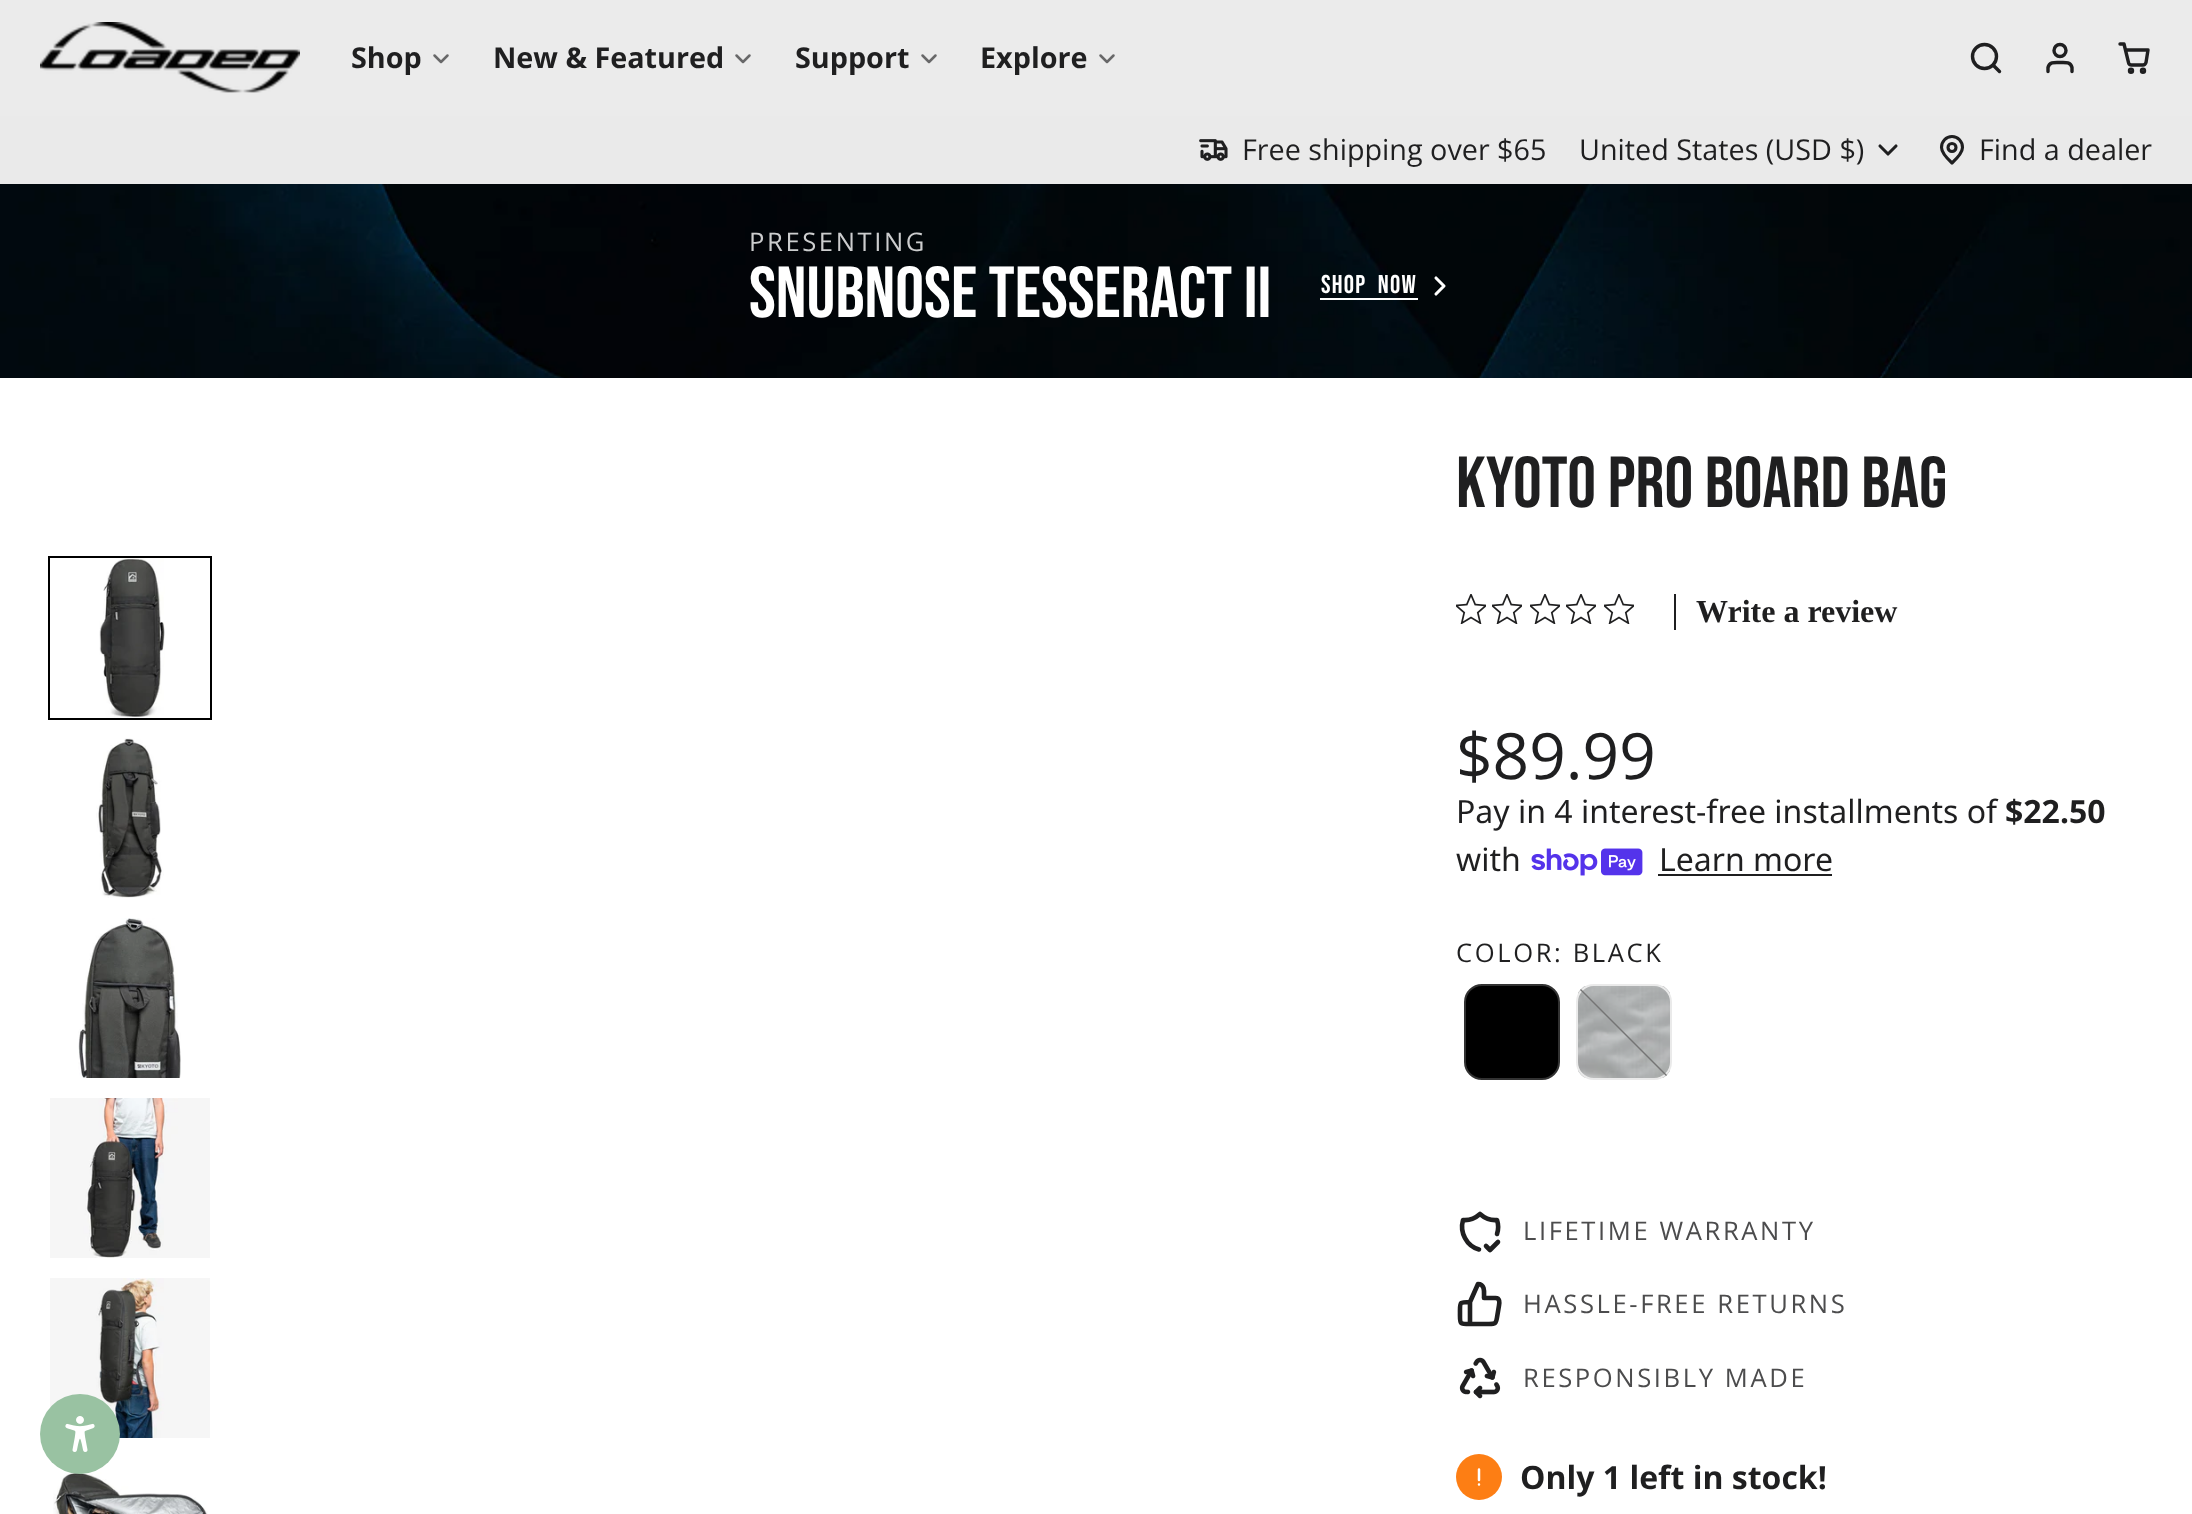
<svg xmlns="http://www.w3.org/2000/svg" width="2192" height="1514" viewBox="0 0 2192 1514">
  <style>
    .t1 { font: bold 28.75px Open Sans; fill: #1f1f20; }
    .t2 { font: 28.75px Open Sans; fill: #1f1f20; }
    .t3 { font: 25.6px Open Sans; letter-spacing: 2.6px; fill: #cccdce; }
    .t4 { font: 72px Bebas Neue; fill: #fff; }
    .t5 { font: 25.6px Bebas Neue; letter-spacing: 1.25px; fill: #fff; }
    .t6 { font: 72px Bebas Neue; fill: #1f1f20; }
    .t7 { font: bold 32px Liberation Serif; fill: #1f1f20; }
    .t8 { font: 64px Open Sans; fill: #1f1f20; }
    .t9 { font: 32px Noto Sans; fill: #1f1f20; }
    .t10 { font: bold 32px Noto Sans; fill: #1f1f20; }
    .t11 { font: 25.6px Open Sans; letter-spacing: 2.6px; fill: #1f1f20; }
    .t12 { font: 25.6px Open Sans; letter-spacing: 2.6px; fill: #4c4c4d; }
    .t13 { font: bold 32px Open Sans; fill: #1f1f20; }
  </style>
  <rect width="100%" height="100%" fill="#fff"/>
  <image x="50" y="1278" width="160" height="160" href="images/9.png"/>
  <image x="53" y="1472" width="155" height="42" href="images/10.png"/>
  <circle cx="80" cy="1434" r="40" fill="#99c2a2"/>
  <image x="65" y="1416" width="30" height="36" href="images/1.png"/>
  <rect x="0" y="0" width="2192" height="116" fill="#ebebeb"/>
  <image x="40" y="22" width="260" height="71" href="images/2.png"/>
  <text x="351" y="68" class="t1">Shop</text>
  <path d="M434.5 55.5L441 62L447.5 55.5" fill="none" stroke="#686869" stroke-width="2.5" stroke-linecap="round" stroke-linejoin="round"/>
  <text x="493" y="68" class="t1">New &amp; Featured</text>
  <path d="M736.5 55.5L743 62L749.5 55.5" fill="none" stroke="#686869" stroke-width="2.5" stroke-linecap="round" stroke-linejoin="round"/>
  <text x="795" y="68" class="t1">Support</text>
  <path d="M922.5 55.5L929 62L935.5 55.5" fill="none" stroke="#686869" stroke-width="2.5" stroke-linecap="round" stroke-linejoin="round"/>
  <text x="980" y="68" class="t1">Explore</text>
  <path d="M1100.5 55.5L1107 62L1113.5 55.5" fill="none" stroke="#686869" stroke-width="2.5" stroke-linecap="round" stroke-linejoin="round"/>
  <circle cx="1984.5" cy="56.5" r="12" fill="none" stroke="#1f1f20" stroke-width="3.4"/>
  <path d="M1999.5 71.5L1993 65" fill="none" stroke="#1f1f20" stroke-width="3.4" stroke-linecap="round" stroke-linejoin="round"/>
  <path d="M2072 71.5V67.5C2070.5 61.5 2064.5 62.5 2060 62.5C2055.5 62.5 2049.5 61.5 2048 67.5V71.5" fill="none" stroke="#1f1f20" stroke-width="3.4" stroke-linecap="round" stroke-linejoin="round"/>
  <circle cx="2060" cy="50.5" r="6" fill="none" stroke="#1f1f20" stroke-width="3.4"/>
  <circle cx="2131" cy="70.8" r="1.5" fill="none" stroke="#1f1f20" stroke-width="3.4"/>
  <circle cx="2143" cy="70.8" r="1.5" fill="none" stroke="#1f1f20" stroke-width="3.4"/>
  <path d="M2120 44H2124L2128.5 62.5C2128.5 64 2130 65 2131.5 65H2143C2144.5 65 2145.5 64 2146 62.5L2148 50H2126.5" fill="none" stroke="#1f1f20" stroke-width="3.4" stroke-linecap="round" stroke-linejoin="round"/>
  <rect x="0" y="116" width="2192" height="68" fill="#eaeaea"/>
  <image x="1199" y="139" width="29" height="22" href="images/3.png"/>
  <text x="1242" y="160" class="t2">Free shipping over $65</text>
  <text x="1579" y="160" class="t2">United States (USD $)</text>
  <path d="M1880 146L1888 154L1896 146" fill="none" stroke="#1f1f20" stroke-width="3.1" stroke-linecap="round" stroke-linejoin="round"/>
  <circle cx="1952" cy="147.5" r="4" fill="none" stroke="#1f1f20" stroke-width="3.1"/>
  <path d="M1952 163C1959 156.5 1962.5 151.5 1962.5 147.5C1962.5 141.5 1958 136.5 1952 136.5C1946 136.5 1941.5 141.5 1941.5 147.5C1941.5 151.5 1945 156.5 1952 163Z" fill="none" stroke="#1f1f20" stroke-width="3.1" stroke-linecap="round" stroke-linejoin="round"/>
  <text x="1979" y="160" class="t2">Find a dealer</text>
  <image x="0" y="184" width="2192" height="194" href="images/4.png"/>
  <text x="749" y="251" class="t3">PRESENTING</text>
  <text x="749" y="317" class="t4">SNUBNOSE TESSERACT II</text>
  <text x="1321" y="293" word-spacing="6" class="t5">SHOP NOW</text>
  <rect x="1320" y="298" width="98" height="2" fill="#fff"/>
  <path d="M1436 294L1444 286L1436 278" fill="none" stroke="#fff" stroke-width="3.1" stroke-linecap="round" stroke-linejoin="round"/>
  <rect x="49" y="557" width="162" height="162" fill="none" stroke="#000" stroke-width="2"/>
  <image x="99" y="558" width="66" height="160" href="images/5.png"/>
  <image x="96" y="738" width="68" height="160" href="images/6.png"/>
  <image x="78" y="918" width="103" height="160" href="images/7.png"/>
  <image x="50" y="1098" width="160" height="160" href="images/8.png"/>
  <text x="1456" y="507" class="t6">KYOTO PRO BOARD BAG</text>
  <image x="1456" y="594" width="30" height="30" href="images/11.png"/>
  <image x="1492" y="594" width="30" height="30" href="images/11.png"/>
  <image x="1530" y="594" width="30" height="30" href="images/11.png"/>
  <image x="1566" y="594" width="30" height="30" href="images/11.png"/>
  <image x="1604" y="594" width="30" height="30" href="images/11.png"/>
  <rect x="1674" y="594" width="2" height="36" fill="#1f1f20"/>
  <text x="1696" y="622" class="t7">Write a review</text>
  <text x="1456" y="779" class="t8">$89.99</text>
  <text x="1456" y="823" class="t9">Pay in 4 interest-free installments of</text>
  <text x="2005" y="823" class="t10">$22.50</text>
  <text x="1456" y="871" class="t9">with</text>
  <image x="1531" y="848" width="112" height="28" href="images/12.png"/>
  <text x="1659" y="871" class="t9">Learn more</text>
  <rect x="1658" y="874" width="174" height="2" fill="#1f1f20"/>
  <text x="1456" y="962" class="t11">COLOR: BLACK</text>
  <rect x="1465" y="985" width="94" height="94" rx="17" fill="#000" stroke="#323232" stroke-width="2"/>
  <image x="1578" y="986" width="92" height="92" href="images/13.png"/>
  <rect x="1577" y="985" width="94" height="94" rx="17" fill="none" stroke="#eaeaea" stroke-width="2"/>
  <path d="M1581 989L1667 1075L1666 1076L1580 990Z" fill="#757575"/>
  <path d="M1479 1249.5C1466.5 1246 1459.5 1232.5 1463 1220C1469 1220.5 1475.5 1218 1480 1214C1484.5 1218 1491 1220.5 1497 1220C1498.5 1224.5 1498.5 1229.5 1497 1234M1486 1246L1490 1250L1498 1242" fill="none" stroke="#1f1f20" stroke-width="4.6" stroke-linecap="round" stroke-linejoin="round"/>
  <text x="1523" y="1240" class="t12">LIFETIME WARRANTY</text>
  <path d="M1484 1298C1484 1293 1485.5 1284 1478 1284L1470 1302V1324H1489C1495 1324 1496 1324 1497 1317.5L1499 1305.5C1499.5 1302.5 1500 1298 1495.5 1298ZM1470 1324C1459 1324 1460 1324 1460 1313C1460 1302 1459 1302 1470 1302" fill="none" stroke="#1f1f20" stroke-width="4.6" stroke-linecap="round" stroke-linejoin="round"/>
  <text x="1523" y="1313" class="t12">HASSLE-FREE RETURNS</text>
  <image x="1459" y="1357" width="42" height="42" href="images/14.png"/>
  <text x="1523" y="1387" class="t12">RESPONSIBLY MADE</text>
  <circle cx="1479" cy="1477" r="23" fill="#fd7e14"/>
  <path d="M1479 1484.5H1479M1479 1480V1469.5" fill="none" stroke="#fff" stroke-width="2.5" stroke-linecap="round" stroke-linejoin="round"/>
  <text x="1520" y="1489" class="t13">Only 1 left in stock!</text>
</svg>
